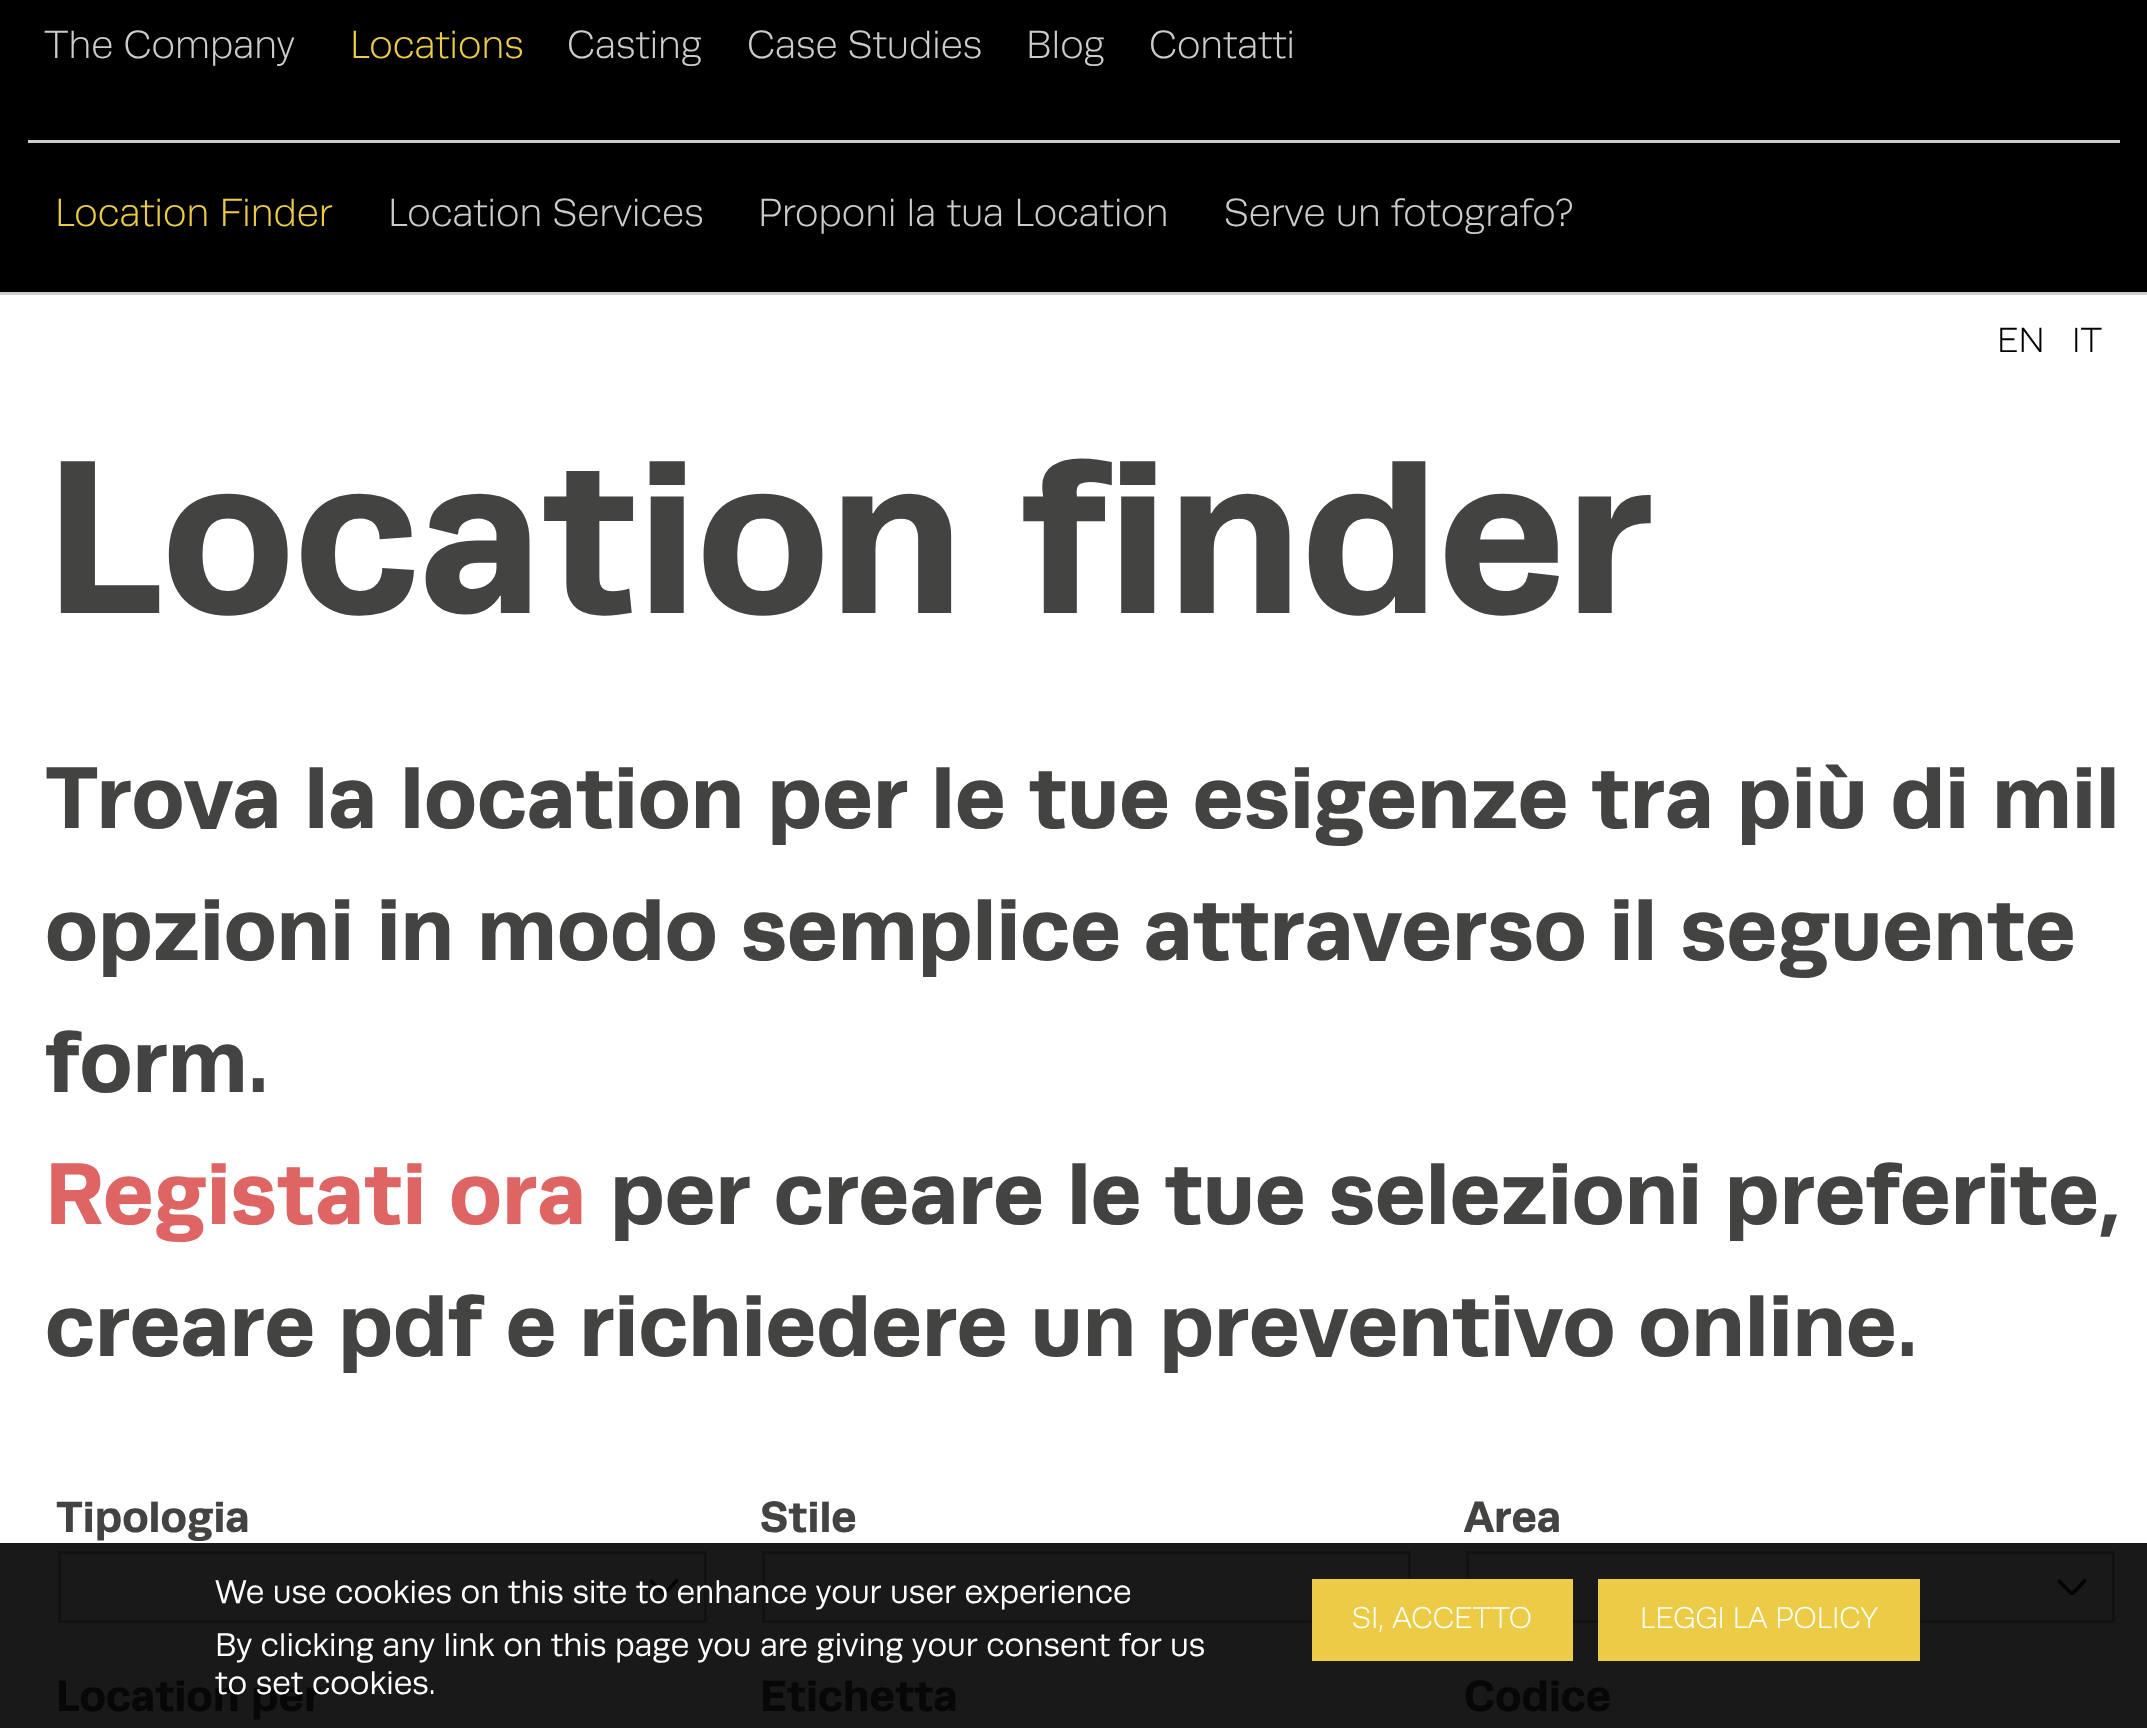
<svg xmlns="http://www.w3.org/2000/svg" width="2147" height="1728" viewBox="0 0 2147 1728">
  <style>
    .t1 { font: 300 39.6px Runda; fill: #ccc; }
    .t2 { font: 300 39.6px Runda; fill: #eccc46; }
    .t3 { font: 300 35px Runda; fill: #000; }
    .t4 { font: bold 220px Runda; fill: #434342; }
    .t5 { font: bold 88px Runda; fill: #434342; }
    .t6 { font: bold 88px Runda; fill: #df6464; }
    .t7 { font: bold 44px Runda; fill: #434342; }
    .t8 { font: bold 44px Runda; fill: #070707; }
    .t9 { font: 33px Runda; fill: #fff; }
    .t10 { font: 300 30.25px Runda; fill: #fff; }
  </style>
  <defs>
    <clipPath id="clip1"><rect x="649" y="1579" width="30" height="16"/></clipPath>
    <clipPath id="clip2"><rect x="2057" y="1579" width="30" height="16"/></clipPath>
  </defs>
  <rect width="100%" height="100%" fill="#fff"/>
  <rect x="0" y="1543" width="2147" height="185" fill="#191919"/>
  <rect x="0" y="0" width="2147" height="292" fill="#000"/>
  <rect x="0" y="292" width="2147" height="3" fill="#ccc"/>
  <text x="44" y="58" class="t1">The Company</text>
  <text x="350" y="58" class="t2">Locations</text>
  <rect x="28" y="140" width="2092" height="3" fill="#ccc"/>
  <text x="55" y="226" class="t2">Location Finder</text>
  <text x="388" y="226" class="t1">Location Services</text>
  <text x="758" y="226" class="t1">Proponi la tua Location</text>
  <text x="1224" y="226" class="t1">Serve un fotografo?</text>
  <text x="567" y="58" class="t1">Casting</text>
  <text x="747" y="58" class="t1">Case Studies</text>
  <text x="1026" y="58" class="t1">Blog</text>
  <text x="1149" y="58" class="t1">Contatti</text>
  <text x="1997" y="352" class="t3">EN</text>
  <text x="2072" y="352" class="t3">IT</text>
  <text x="45" y="613" class="t4">Location finder</text>
  <text x="45" y="828" class="t5">Trova la location per le tue esigenze tra più di mil</text>
  <text x="45" y="960" class="t5">opzioni in modo semplice attraverso il seguente</text>
  <text x="45" y="1092" class="t5">form.</text>
  <text x="45" y="1224" class="t6">Registati ora</text>
  <text x="610" y="1224" class="t5">per creare le tue selezioni preferite,</text>
  <text x="45" y="1356" class="t5">creare pdf e richiedere un preventivo online.</text>
  <text x="56" y="1532" class="t7">Tipologia</text>
  <g clip-path="url(#clip1)">
    <path d="M666.5 1594L679 1581L676.5 1578.5L664 1591.5L651.5 1579L649 1581.5L664 1596.5Z" fill="#040404"/>
  </g>
  <rect x="59.5" y="1552.5" width="646" height="69" fill="none" stroke="#121212" stroke-width="3"/>
  <text x="760" y="1532" class="t7">Stile</text>
  <rect x="763.5" y="1552.5" width="646" height="69" fill="none" stroke="#121212" stroke-width="3"/>
  <text x="1464" y="1532" class="t7">Area</text>
  <g clip-path="url(#clip2)">
    <path d="M2074.5 1594L2087 1581L2084.5 1578.5L2072 1591.5L2059.5 1579L2057 1581.5L2072 1596.5Z" fill="#040404"/>
  </g>
  <rect x="1467.5" y="1552.5" width="646" height="69" fill="none" stroke="#121212" stroke-width="3"/>
  <text x="56" y="1711" class="t8">Location per</text>
  <text x="760" y="1711" class="t8">Etichetta</text>
  <text x="1464" y="1711" class="t8">Codice</text>
  <text x="215" y="1603" class="t9">We use cookies on this site to enhance your user experience</text>
  <text x="215" y="1656" class="t9">By clicking any link on this page you are giving your consent for us</text>
  <text x="215" y="1694" class="t9">to set cookies.</text>
  <rect x="1312" y="1579" width="261" height="82" fill="#eccc46"/>
  <text x="1352" y="1628" class="t10">SI, ACCETTO</text>
  <rect x="1598" y="1579" width="322" height="82" fill="#eccc46"/>
  <text x="1640" y="1628" class="t10">LEGGI LA POLICY</text>
</svg>
